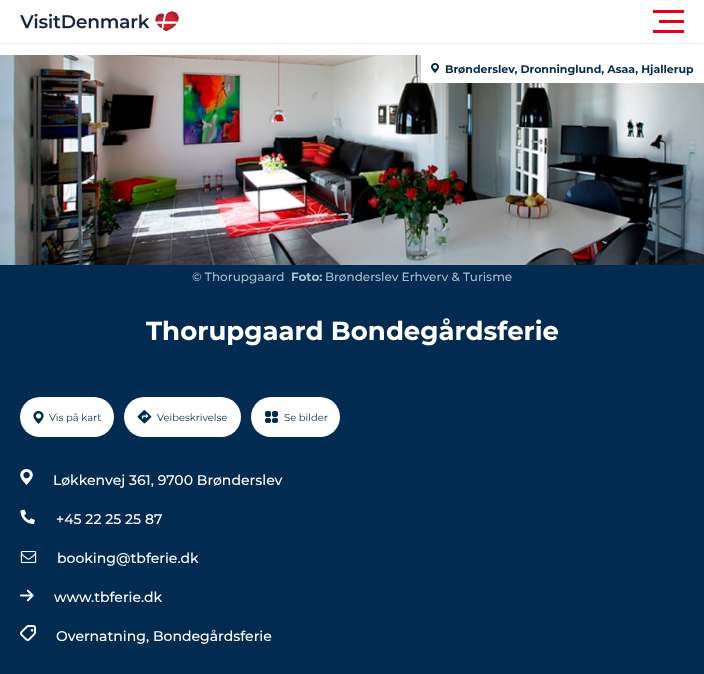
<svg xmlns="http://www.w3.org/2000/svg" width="704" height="674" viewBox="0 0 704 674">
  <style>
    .t1 { font: bold 11px Montserrat; fill: #022b52; }
    .t2 { font: 500 12px Montserrat; fill: #aabccd; }
    .t3 { font: bold 12px Montserrat; fill: #aabccd; }
    .t4 { font: bold 26px Montserrat; fill: #fff; }
    .t5 { font: 10px Montserrat; fill: #022b52; }
    .t6 { font: 500 14px Montserrat; fill: #fff; }
  </style>
  <rect width="100%" height="100%" fill="#fff"/>
  <rect x="0" y="43" width="704" height="1" fill="#f0f1f3"/>
  <image x="20" y="11" width="159" height="20" href="images/1.png"/>
  <rect x="653" y="10" width="31" height="3" fill="#e70013"/>
  <rect x="659" y="20" width="25" height="3" fill="#e70013"/>
  <rect x="653" y="30" width="31" height="3" fill="#e70013"/>
  <image x="0" y="55" width="704" height="210" href="images/2.png"/>
  <path d="M421 55H704V83H426C423 83 421 81 421 78Z" fill="#fff"/>
  <image x="431" y="63" width="8" height="10" href="images/3.png"/>
  <text x="445" y="73" class="t1">Brønderslev, Dronninglund, Asaa, Hjallerup</text>
  <rect x="0" y="265" width="704" height="409" fill="#022b52"/>
  <text x="192" y="281" class="t2">© Thorupgaard</text>
  <text x="291" y="281" class="t3">Foto:</text>
  <text x="325" y="281" class="t2">Brønderslev Erhverv &amp; Turisme</text>
  <text x="146" y="340" class="t4">Thorupgaard Bondegårdsferie</text>
  <rect x="20" y="397" width="94" height="40" rx="20" fill="#fff"/>
  <image x="33" y="411" width="11" height="13" href="images/4.png"/>
  <text x="49" y="421" class="t5">Vis på kart</text>
  <rect x="124" y="397" width="117" height="40" rx="20" fill="#fff"/>
  <image x="137" y="410" width="15" height="14" href="images/5.png"/>
  <text x="157" y="421" class="t5">Veibeskrivelse</text>
  <rect x="251" y="397" width="89" height="40" rx="20" fill="#fff"/>
  <image x="265" y="411" width="13" height="12" href="images/6.png"/>
  <text x="284" y="421" class="t5">Se bilder</text>
  <image x="20" y="469" width="13" height="16" href="images/7.png"/>
  <text x="53" y="485" class="t6">Løkkenvej 361, 9700 Brønderslev</text>
  <image x="20" y="509" width="15" height="15" href="images/8.png"/>
  <text x="56" y="524" class="t6">+45 22 25 25 87</text>
  <image x="20" y="551" width="17" height="12" href="images/9.png"/>
  <text x="57" y="563" class="t6">booking@tbferie.dk</text>
  <image x="20" y="589" width="14" height="13" href="images/10.png"/>
  <text x="54" y="602" class="t6">www.tbferie.dk</text>
  <image x="20" y="625" width="16" height="16" href="images/11.png"/>
  <text x="56" y="641" class="t6">Overnatning, Bondegårdsferie</text>
</svg>
